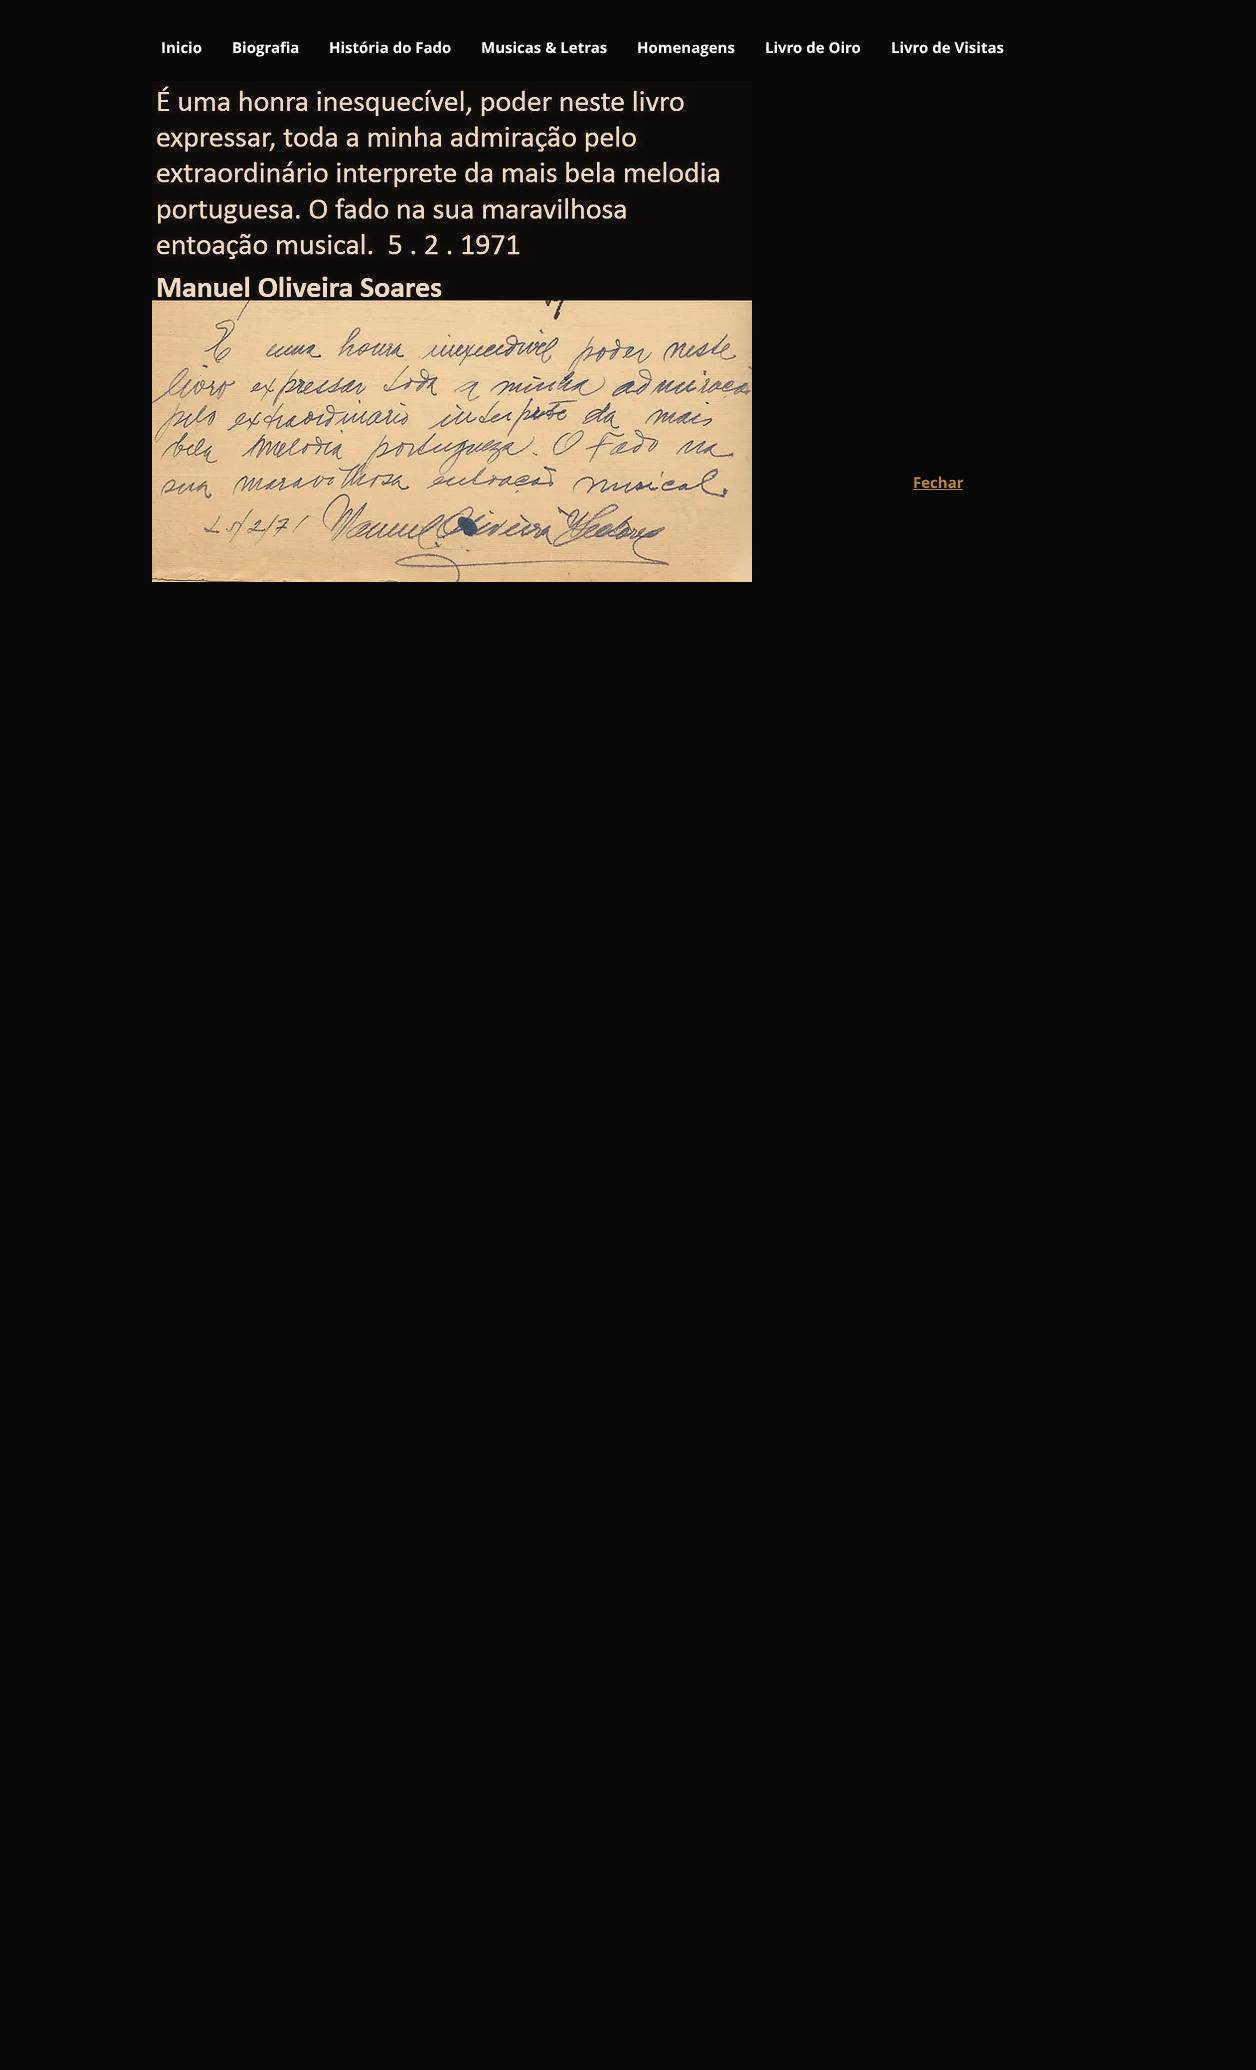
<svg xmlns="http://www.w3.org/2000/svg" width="1256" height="2070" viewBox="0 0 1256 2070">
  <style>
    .t1 { font: bold 15px Open Sans; fill: #fff; }
    .t2 { font: bold 15px Open Sans; fill: #b78837; }
  </style>
  <rect width="100%" height="100%" fill="#070606"/>
  <text x="161" y="53" class="t1">Inicio</text>
  <text x="232" y="53" class="t1">Biografia</text>
  <text x="329" y="53" class="t1">História do Fado</text>
  <text x="481" y="53" class="t1">Musicas &amp; Letras</text>
  <text x="637" y="53" class="t1">Homenagens</text>
  <text x="765" y="53" class="t1">Livro de Oiro</text>
  <text x="891" y="53" class="t1">Livro de Visitas</text>
  <image x="152" y="81" width="600" height="501" href="images/1.png"/>
  <text x="913" y="488" class="t2">Fechar</text>
  <rect x="913" y="489" width="50" height="1" fill="#b78837"/>
</svg>
